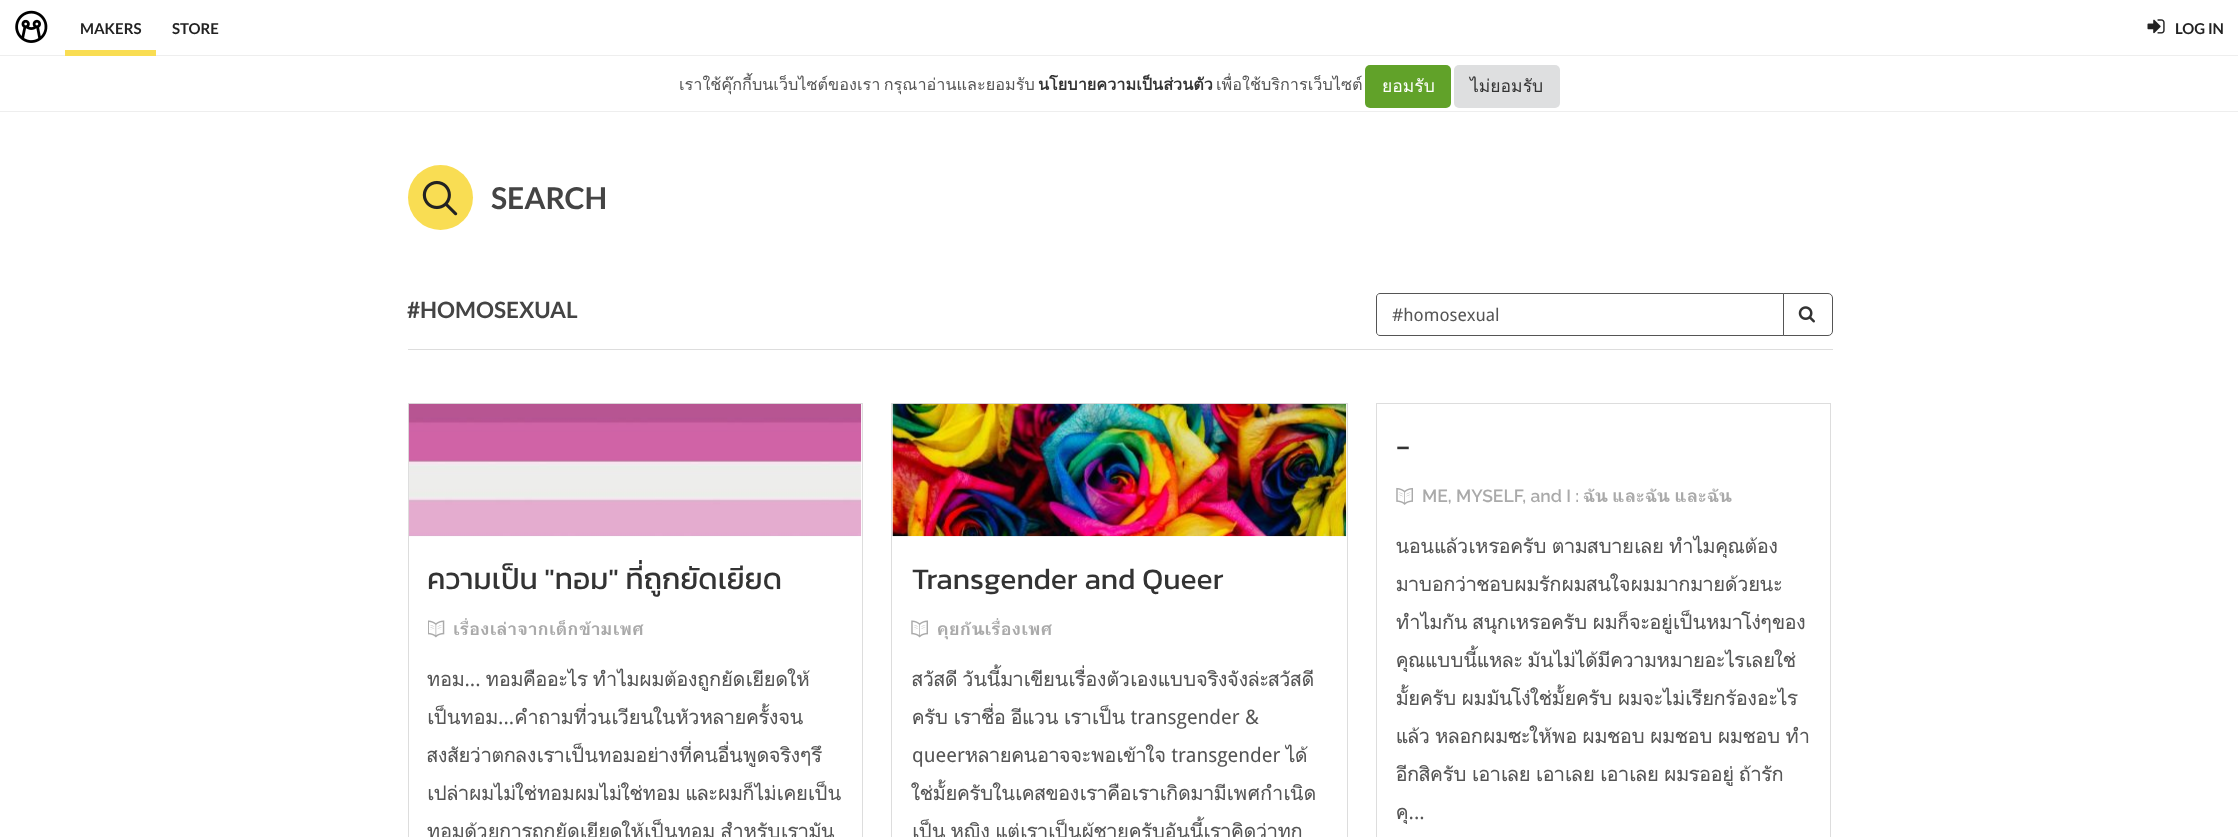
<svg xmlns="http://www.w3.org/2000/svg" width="2238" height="837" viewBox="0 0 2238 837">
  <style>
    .t1 { font: bold 15px Lato; fill: #222; }
    .t2 { font: 16.25px Loma; fill: #555; }
    .t3 { font: bold 16.25px Loma; fill: #333; }
    .t4 { font: 17.5px Loma; fill: #fff; }
    .t5 { font: 17.5px Loma; fill: #333; }
    .t6 { font: bold 30px Lato; fill: #444; }
    .t7 { font: bold 22.5px Lato; fill: #444; }
    .t8 { font: 17.5px Droid Sans; fill: #555; }
    .t9 { font: 30px Kanit; fill: #333; }
    .t10 { font: bold 17.5px Droid Sans; fill: #aaa; }
    .t11 { font: 20px Droid Sans; fill: #555; }
    .t12 { font: 600 17.5px Raleway; fill: #aaa; }
  </style>
  <defs>
    <clipPath id="clip1"><rect x="428" y="654" width="415" height="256"/></clipPath>
    <clipPath id="clip2"><rect x="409" y="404" width="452" height="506"/></clipPath>
    <clipPath id="clip3"><rect x="911" y="654" width="417" height="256"/></clipPath>
    <clipPath id="clip4"><rect x="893" y="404" width="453" height="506"/></clipPath>
    <clipPath id="clip5"><rect x="1396" y="521" width="415" height="310"/></clipPath>
  </defs>
  <rect width="100%" height="100%" fill="#fff"/>
  <rect x="0" y="55" width="2238" height="1" fill="#eee"/>
  <image x="15" y="10" width="33" height="33" href="images/1.png"/>
  <rect x="65" y="50" width="91" height="6" fill="#f9dd53"/>
  <text x="80" y="34" class="t1">MAKERS</text>
  <text x="172" y="34" class="t1">STORE</text>
  <image x="2147" y="19" width="18" height="15" href="images/2.png"/>
  <text x="2175" y="34" class="t1">LOG IN</text>
  <rect x="0" y="111" width="2238" height="1" fill="#eee"/>
  <text x="679" y="90" word-spacing="-2" class="t2">เราใช้คุ๊กกี้บนเว็บไซต์ของเรา กรุณาอ่านและยอมรับ</text>
  <text x="1038" y="90" class="t3">นโยบายความเป็นส่วนตัว</text>
  <text x="1216" y="90" class="t2">เพื่อใช้บริการเว็บไซต์</text>
  <rect x="1365" y="65" width="86" height="43" rx="5" fill="#61a229"/>
  <text x="1382" y="92" class="t4">ยอมรับ</text>
  <rect x="1454" y="65" width="106" height="43" rx="5" fill="#dedfe0"/>
  <text x="1470" y="92" class="t5">ไม่ยอมรับ</text>
  <circle cx="440.5" cy="197.5" r="32.5" fill="#f9dd53"/>
  <image x="422" y="180" width="36" height="36" href="images/3.png"/>
  <text x="491" y="209" class="t6">SEARCH</text>
  <rect x="408" y="349" width="1425" height="1" fill="#ddd"/>
  <text x="407" y="318" class="t7">#HOMOSEXUAL</text>
  <path d="M1783.5 293.5H1828C1830.5 293.5 1832.5 295.5 1832.5 298V331C1832.5 333.5 1830.5 335.5 1828 335.5H1783.5Z" fill="none" stroke="#555"/>
  <path d="M1380 293.5H1783.5V335.5H1380C1378 335.5 1376.5 334 1376.5 332V297C1376.5 295 1378 293.5 1380 293.5Z" fill="#fff" stroke="#555"/>
  <text x="1392" y="321" class="t8">#homosexual</text>
  <image x="1798" y="306" width="17" height="17" href="images/4.png"/>
  <rect x="408.5" y="403.5" width="454" height="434" fill="none" stroke="#ddd"/>
  <image x="408" y="403" width="454" height="134" href="images/5.png"/>
  <text x="427" y="589" class="t9">ความเป็น "ทอม" ที่ถูกยัดเยียด</text>
  <image x="428" y="620" width="17" height="18" href="images/6.png"/>
  <text x="453" y="635" class="t10">เรื่องเล่าจากเด็กข้ามเพศ</text>
  <text x="427" y="686" class="t11">ทอม... ทอมคืออะไร ทำไมผมต้องถูกยัดเยียดให้</text>
  <g clip-path="url(#clip1)">
    <text x="427" y="724" class="t11">เป็นทอม...คำถามที่วนเวียนในหัวหลายครั้งจน</text>
  </g>
  <text x="427" y="762" class="t11">สงสัยว่าตกลงเราเป็นทอมอย่างที่คนอื่นพูดจริงๆรึ</text>
  <text x="427" y="800" class="t11">เปล่าผมไม่ใช่ทอมผมไม่ใช่ทอม และผมก็ไม่เคยเป็น</text>
  <text x="427" y="838" class="t11">ทอมด้วยการถูกยัดเยียดให้เป็นทอม สำหรับเรามัน</text>
  <g clip-path="url(#clip2)">
    <rect x="396" y="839" width="478" height="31" fill="#fff" filter="blur(11px)"/>
  </g>
  <rect x="891.5" y="403.5" width="456" height="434" fill="none" stroke="#ddd"/>
  <image x="892" y="403" width="455" height="134" href="images/7.png"/>
  <text x="912" y="589" class="t9">Transgender and Queer</text>
  <image x="911" y="620" width="17" height="18" href="images/8.png"/>
  <text x="937" y="635" class="t10">คุยกันเรื่องเพศ</text>
  <text x="912" y="686" class="t11">สวัสดี วันนี้มาเขียนเรื่องตัวเองแบบจริงจังล่ะสวัสดี</text>
  <text x="912" y="724" class="t11">ครับ เราชื่อ อีแวน เราเป็น transgender &amp;</text>
  <text x="912" y="762" class="t11">queerหลายคนอาจจะพอเข้าใจ transgender ได้</text>
  <text x="912" y="800" class="t11">ใช่มั้ยครับในเคสของเราคือเราเกิดมามีเพศกำเนิด</text>
  <g clip-path="url(#clip3)">
    <text x="912" y="838" class="t11">เป็น หญิง แต่เราเป็นผู้ชายครับอันนี้เราคิดว่าทุก</text>
  </g>
  <g clip-path="url(#clip4)">
    <rect x="880" y="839" width="479" height="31" fill="#fff" filter="blur(11px)"/>
  </g>
  <rect x="1376.5" y="403.5" width="454" height="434" fill="none" stroke="#ddd"/>
  <text x="1396" y="456" class="t9">-</text>
  <image x="1396" y="487" width="17" height="18" href="images/9.png"/>
  <text x="1422" y="502" class="t12">ME, MYSELF, and I :</text>
  <text x="1583" y="502" class="t10">ฉัน และฉัน และฉัน</text>
  <text x="1396" y="553" class="t11">นอนแล้วเหรอครับ ตามสบายเลย ทำไมคุณต้อง</text>
  <text x="1396" y="591" class="t11">มาบอกว่าชอบผมรักผมสนใจผมมากมายด้วยนะ</text>
  <g clip-path="url(#clip5)">
    <text x="1396" y="629" class="t11">ทำไมกัน สนุกเหรอครับ ผมก็จะอยู่เป็นหมาโง่ๆของ</text>
    <text x="1396" y="667" class="t11">คุณแบบนี้แหละ มันไม่ได้มีความหมายอะไรเลยใช่</text>
    <text x="1396" y="705" class="t11">มั้ยครับ ผมมันโง่ใช่มั้ยครับ ผมจะไม่เรียกร้องอะไร</text>
  </g>
  <text x="1396" y="743" class="t11">แล้ว หลอกผมซะให้พอ ผมชอบ ผมชอบ ผมชอบ ทำ</text>
  <g clip-path="url(#clip5)">
    <text x="1396" y="781" class="t11">อีกสิครับ เอาเลย เอาเลย เอาเลย ผมรออยู่ ถ้ารัก</text>
    <text x="1396" y="819" class="t11">คุ...</text>
  </g>
</svg>
